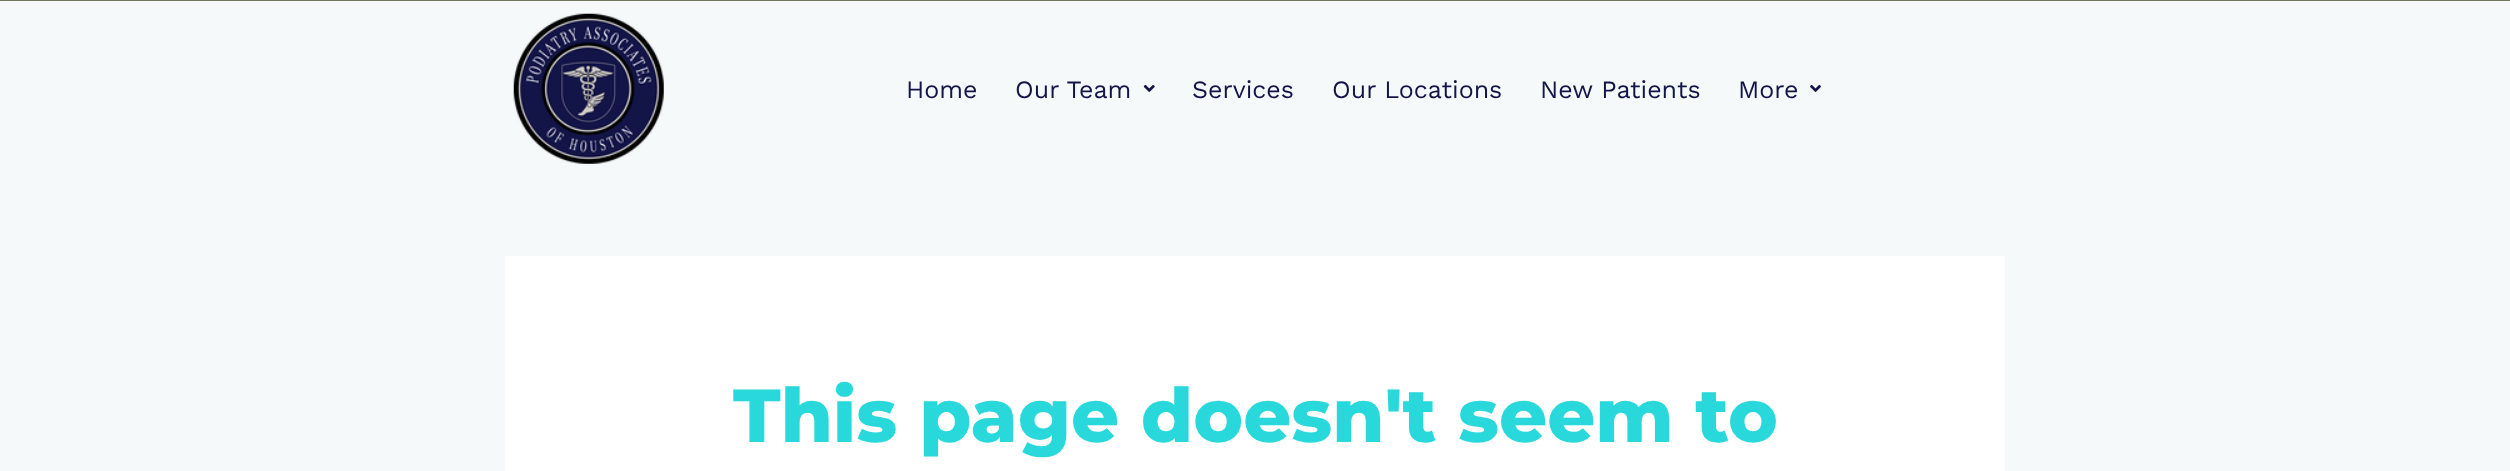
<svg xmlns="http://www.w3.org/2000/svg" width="2510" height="471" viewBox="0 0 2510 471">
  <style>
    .t1 { font: 25px Work Sans; fill: #131448; }
    .t2 { font: 100 75px Montserrat; fill: #29d8db; }
  </style>
  <rect width="100%" height="100%" fill="#f6f9f9"/>
  <rect x="0" y="0" width="2510" height="1" fill="#72765b"/>
  <image x="513" y="13" width="151" height="151" href="images/1.png"/>
  <text x="906" y="98" class="t1">Home</text>
  <text x="1015" y="98" class="t1">Our Team</text>
  <image x="1143" y="85" width="12" height="7" href="images/2.png"/>
  <text x="1192" y="98" class="t1">Services</text>
  <text x="1332" y="98" class="t1">Our Locations</text>
  <text x="1540" y="98" class="t1">New Patients</text>
  <text x="1738" y="98" class="t1">More</text>
  <image x="1810" y="85" width="11" height="7" href="images/3.png"/>
  <rect x="505" y="256" width="1500" height="215" fill="#fff"/>
  <text x="733" y="442" class="t2">This page doesn't seem to</text>
</svg>
